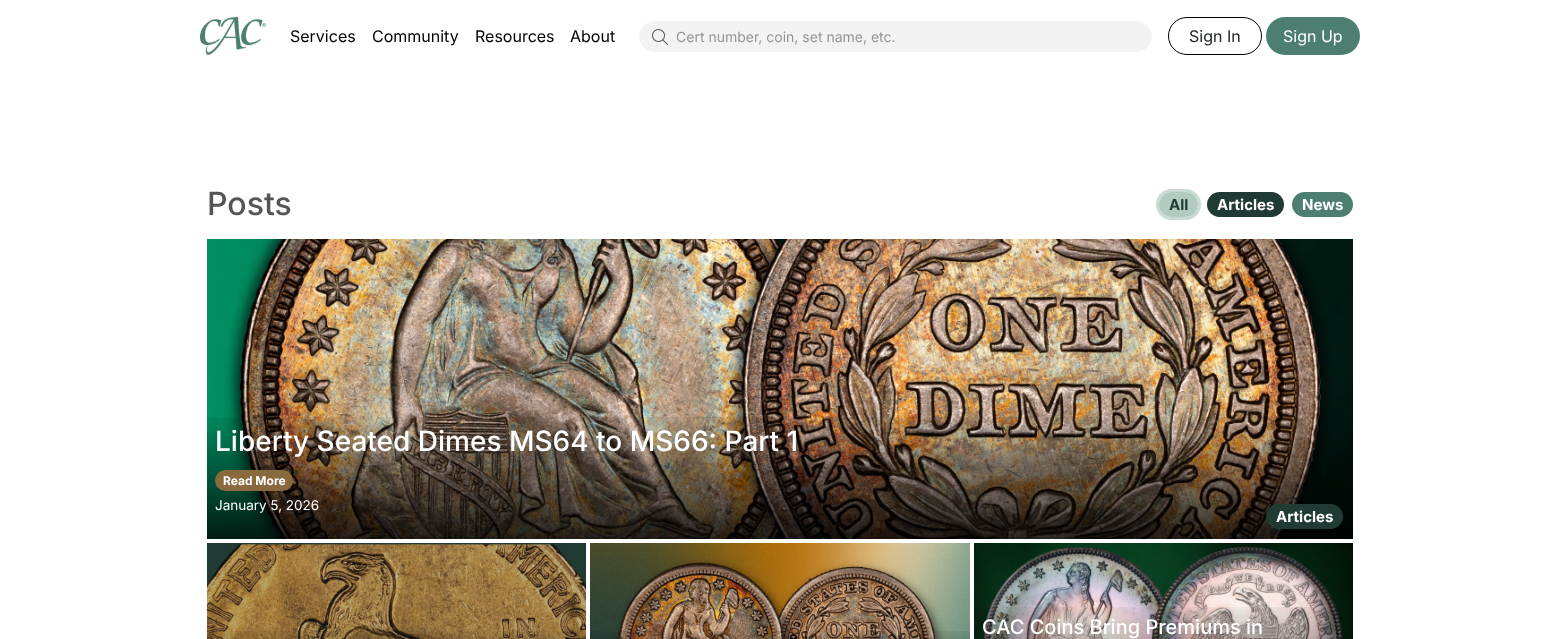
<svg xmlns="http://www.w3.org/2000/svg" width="1560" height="639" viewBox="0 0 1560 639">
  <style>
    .t1 { font: 16px Inter; fill: #000; }
    .t2 { font: 14px Inter; fill: #959595; }
    .t3 { font: 16px Inter; fill: #212529; }
    .t4 { font: 16px Inter; fill: #fff; }
    .t5 { font: 500 32px Inter; fill: #555; }
    .t6 { font: bold 15px Inter; fill: #1f3b34; }
    .t7 { font: bold 15px Inter; fill: #fff; }
    .t8 { font: 500 28px Inter; fill: #fff; }
    .t9 { font: bold 12px Inter; fill: #fff; }
    .t10 { font: 13.5px Inter; fill: #fff; }
    .t11 { font: 500 20px Inter; fill: #fff; }
  </style>
  <rect width="100%" height="100%" fill="#fff"/>
  <image x="200" y="16" width="66" height="40" href="images/1.png"/>
  <text x="290" y="42" class="t1">Services</text>
  <text x="372" y="42" class="t1">Community</text>
  <text x="475" y="42" class="t1">Resources</text>
  <text x="570" y="42" class="t1">About</text>
  <rect x="639.5" y="21.5" width="512" height="30" rx="15" fill="#f3f3f3" stroke="#f3f3f3"/>
  <image x="652" y="29" width="16" height="16" href="images/2.png"/>
  <text x="676" y="42" class="t2">Cert number, coin, set name, etc.</text>
  <rect x="1168.5" y="17.5" width="93" height="37" rx="18.5" fill="none" stroke="#000"/>
  <text x="1189" y="42" class="t3">Sign In</text>
  <rect x="1266" y="17" width="94" height="38" rx="19" fill="#4d7f71"/>
  <text x="1283" y="42" class="t4">Sign Up</text>
  <text x="207" y="215" class="t5">Posts</text>
  <rect x="1157.5" y="190.5" width="42" height="28" rx="14" fill="none" stroke="#c9dbd3" stroke-width="3"/>
  <rect x="1159" y="192" width="39" height="25" rx="12.5" fill="#b2cbc0"/>
  <text x="1169" y="210" class="t6">All</text>
  <rect x="1207" y="192" width="77" height="25" rx="12.5" fill="#1f3b34"/>
  <text x="1217" y="210" class="t7">Articles</text>
  <rect x="1292" y="192" width="61" height="25" rx="12.5" fill="#4d7f71"/>
  <text x="1302" y="210" class="t7">News</text>
  <image x="207" y="239" width="1146" height="300" href="images/3.png"/>
  <text x="215" y="451" class="t8">Liberty Seated Dimes MS64 to MS66: Part 1</text>
  <rect x="215" y="470" width="78" height="21" rx="10.5" fill="#896a3e"/>
  <text x="223" y="485" class="t9">Read More</text>
  <text x="215" y="510" class="t10">January 5, 2026</text>
  <rect x="1266" y="504" width="77" height="25" rx="12.5" fill="#1f3b34"/>
  <text x="1276" y="522" class="t7">Articles</text>
  <image x="207" y="543" width="379" height="96" href="images/4.png"/>
  <image x="590" y="543" width="380" height="96" href="images/5.png"/>
  <image x="974" y="543" width="379" height="96" href="images/6.png"/>
  <text x="982" y="634" class="t11">CAC Coins Bring Premiums in</text>
</svg>
